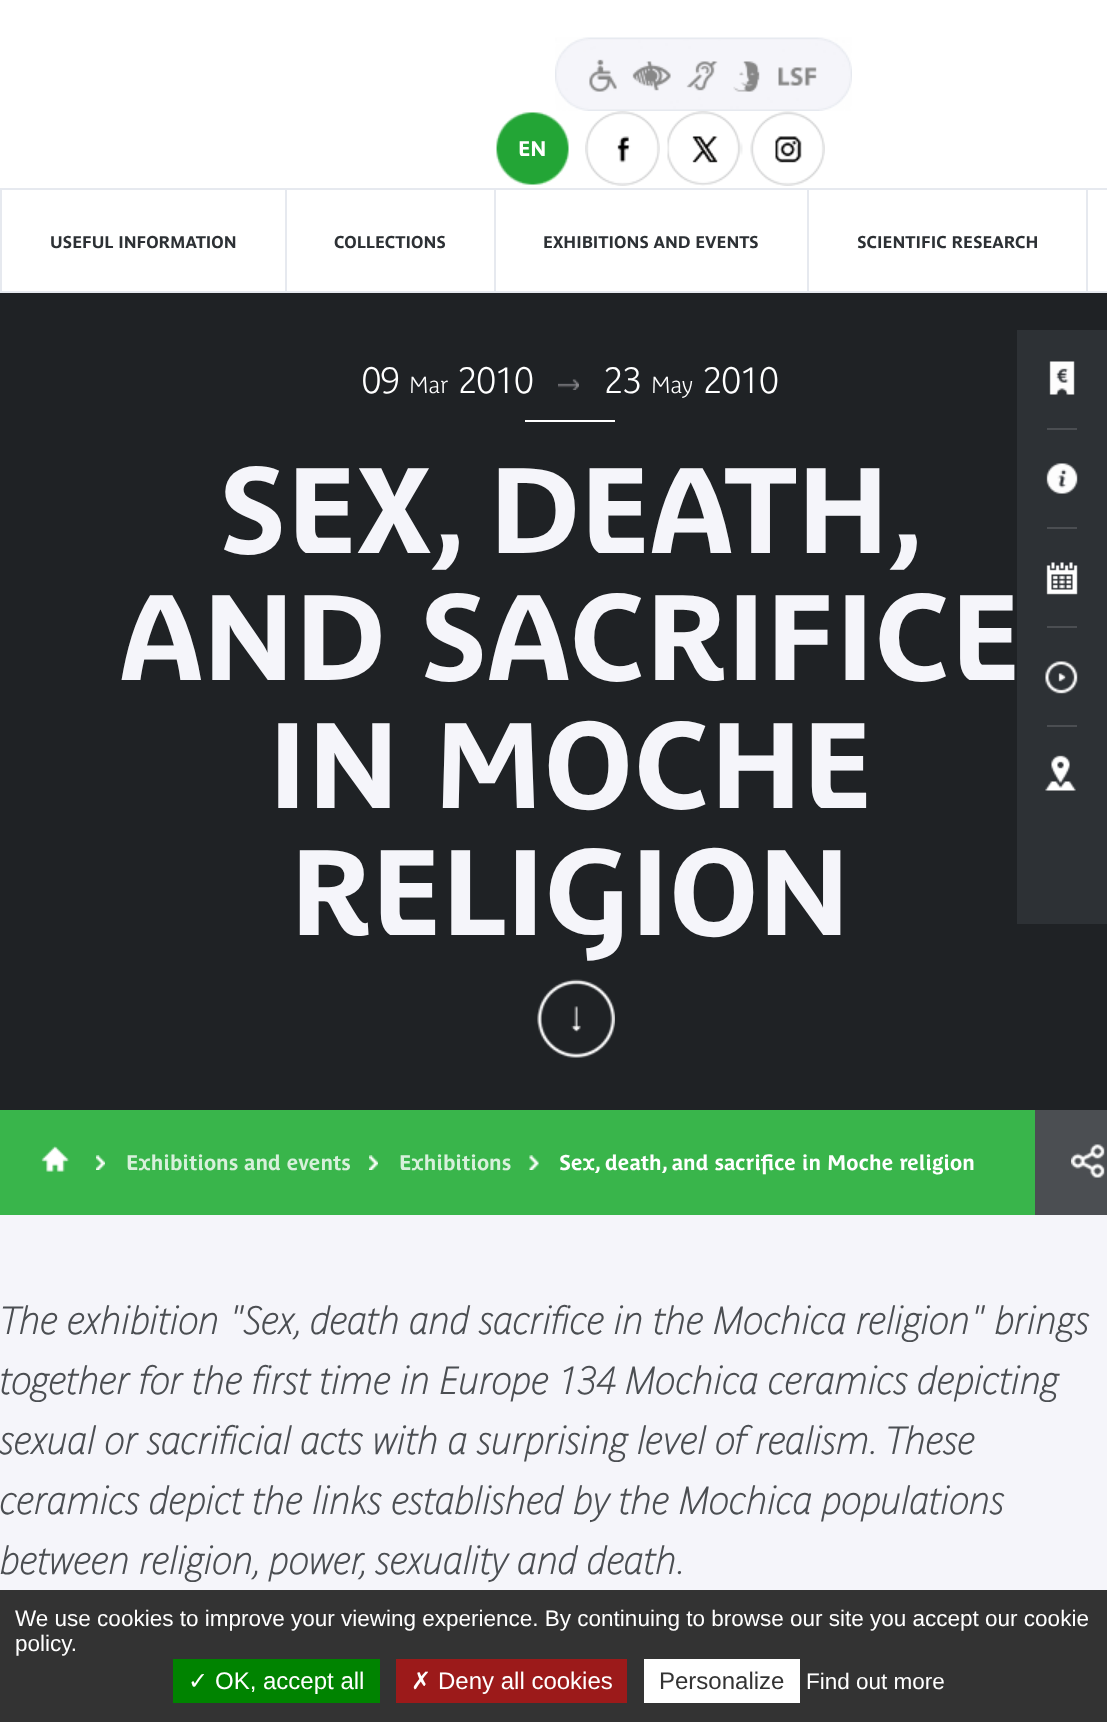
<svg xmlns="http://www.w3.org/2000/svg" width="1107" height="1722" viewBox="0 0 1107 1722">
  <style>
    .t1 { font: bold 21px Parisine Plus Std; fill: #fff; }
    .t2 { font: bold 16.75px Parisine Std; fill: #2d3135; }
    .t3 { font: bold 36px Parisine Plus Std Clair; fill: #fff; }
    .t4 { font: bold 23px Parisine Plus Std Clair; fill: #fff; }
    .t5 { font: bold 120px Parisine Plus Std; fill: #f5f5fa; }
    .t6 { font: bold 21px Parisine Plus Std; fill: #d7f0db; }
    .t7 { font: italic bold 37.5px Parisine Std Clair; fill: #4b4e52; }
    .t8 { font: 22.5px Liberation Sans; fill: #fff; }
    .t9 { font: 24px DejaVu Sans; fill: #fff; }
    .t10 { font: 24px Liberation Sans; fill: #fff; }
    .t11 { font: 24px Liberation Sans; fill: #333; }
  </style>
  <rect width="100%" height="100%" fill="#f5f5fa"/>
  <rect x="0" y="0" width="1107" height="291" fill="#fff"/>
  <image x="555" y="37" width="297" height="74" href="images/1.png"/>
  <image x="496" y="112" width="73" height="73" href="images/2.png"/>
  <text x="518" y="156" class="t1">EN</text>
  <image x="585" y="111" width="75" height="75" href="images/3.png"/>
  <image x="667" y="111" width="76" height="75" href="images/4.png"/>
  <image x="750" y="111" width="75" height="75" href="images/5.png"/>
  <rect x="0" y="291" width="1107" height="2" fill="#e6e9ef"/>
  <rect x="0" y="188" width="1107" height="2" fill="#e6e9ef"/>
  <rect x="0" y="188" width="2" height="105" fill="#e6e9ef"/>
  <rect x="285" y="189" width="2" height="104" fill="#e6e9ef"/>
  <text x="50" y="248" class="t2">USEFUL INFORMATION</text>
  <rect x="494" y="189" width="2" height="104" fill="#e6e9ef"/>
  <text x="334" y="248" class="t2">COLLECTIONS</text>
  <rect x="807" y="189" width="2" height="104" fill="#e6e9ef"/>
  <text x="543" y="248" class="t2">EXHIBITIONS AND EVENTS</text>
  <rect x="1086" y="189" width="2" height="104" fill="#e6e9ef"/>
  <text x="857" y="248" class="t2">SCIENTIFIC RESEARCH</text>
  <rect x="0" y="293" width="1107" height="817" fill="#1f2225"/>
  <text x="362" y="393" class="t3">09</text>
  <text x="409" y="393" class="t4">Mar</text>
  <text x="458" y="393" class="t3">2010</text>
  <image x="558" y="379" width="21" height="11" href="images/6.png"/>
  <text x="604" y="393" class="t3">23</text>
  <text x="651" y="393" class="t4">May</text>
  <text x="703" y="393" class="t3">2010</text>
  <rect x="525" y="420" width="90" height="2" fill="#fff"/>
  <text x="218" y="553" class="t5">SEX, DEATH,</text>
  <text x="120" y="680" class="t5">AND SACRIFICE</text>
  <text x="268" y="808" class="t5">IN MOCHE</text>
  <text x="290" y="935" class="t5">RELIGION</text>
  <image x="537" y="979" width="78" height="79" href="images/7.png"/>
  <rect x="0" y="1110" width="1035" height="105" fill="#39b54b"/>
  <image x="41" y="1146" width="29" height="26" href="images/8.png"/>
  <image x="96" y="1155" width="9" height="15" href="images/9.png"/>
  <text x="126" y="1170" class="t6">Exhibitions and events</text>
  <image x="369" y="1155" width="9" height="15" href="images/10.png"/>
  <text x="399" y="1170" class="t6">Exhibitions</text>
  <image x="529" y="1155" width="10" height="15" href="images/11.png"/>
  <text x="559" y="1170" class="t1">Sex, death, and sacrifice in Moche religion</text>
  <rect x="1035" y="1110" width="72" height="105" fill="#4b4e52"/>
  <image x="1071" y="1144" width="34" height="34" href="images/12.png"/>
  <text x="0" y="1334" class="t7">The exhibition "Sex, death and sacrifice in the Mochica religion" brings</text>
  <text x="0" y="1394" class="t7">together for the first time in Europe 134 Mochica ceramics depicting</text>
  <text x="0" y="1454" class="t7">sexual or sacrificial acts with a surprising level of realism. These</text>
  <text x="0" y="1514" class="t7">ceramics depict the links established by the Mochica populations</text>
  <text x="0" y="1574" class="t7">between religion, power, sexuality and death.</text>
  <rect x="1017" y="330" width="90" height="594" fill="#2d3135"/>
  <image x="1049" y="361" width="26" height="34" href="images/13.png"/>
  <rect x="1047" y="428" width="30" height="2" fill="#4b4e52"/>
  <image x="1046" y="463" width="32" height="31" href="images/14.png"/>
  <rect x="1047" y="527" width="30" height="2" fill="#4b4e52"/>
  <image x="1046" y="562" width="32" height="33" href="images/15.png"/>
  <rect x="1047" y="626" width="30" height="2" fill="#4b4e52"/>
  <image x="1045" y="661" width="33" height="33" href="images/16.png"/>
  <rect x="1047" y="725" width="30" height="2" fill="#4b4e52"/>
  <image x="1045" y="755" width="31" height="36" href="images/17.png"/>
  <rect x="0" y="1590" width="1107" height="132" fill="#333"/>
  <text x="15" y="1626" class="t8">We use cookies to improve your viewing experience. By continuing to browse our site you accept our cookie</text>
  <text x="15" y="1651" class="t8">policy.</text>
  <rect x="173" y="1659" width="207" height="44" fill="#008300"/>
  <text x="188" y="1689" class="t9">✓</text>
  <text x="215" y="1689" class="t10">OK, accept all</text>
  <rect x="396" y="1659" width="231" height="44" fill="#9c1a1a"/>
  <text x="411" y="1689" class="t9">✗</text>
  <text x="438" y="1689" class="t10">Deny all cookies</text>
  <rect x="644" y="1659" width="156" height="44" fill="#fff"/>
  <text x="659" y="1689" class="t11">Personalize</text>
  <text x="806" y="1689" class="t8">Find out more</text>
</svg>
